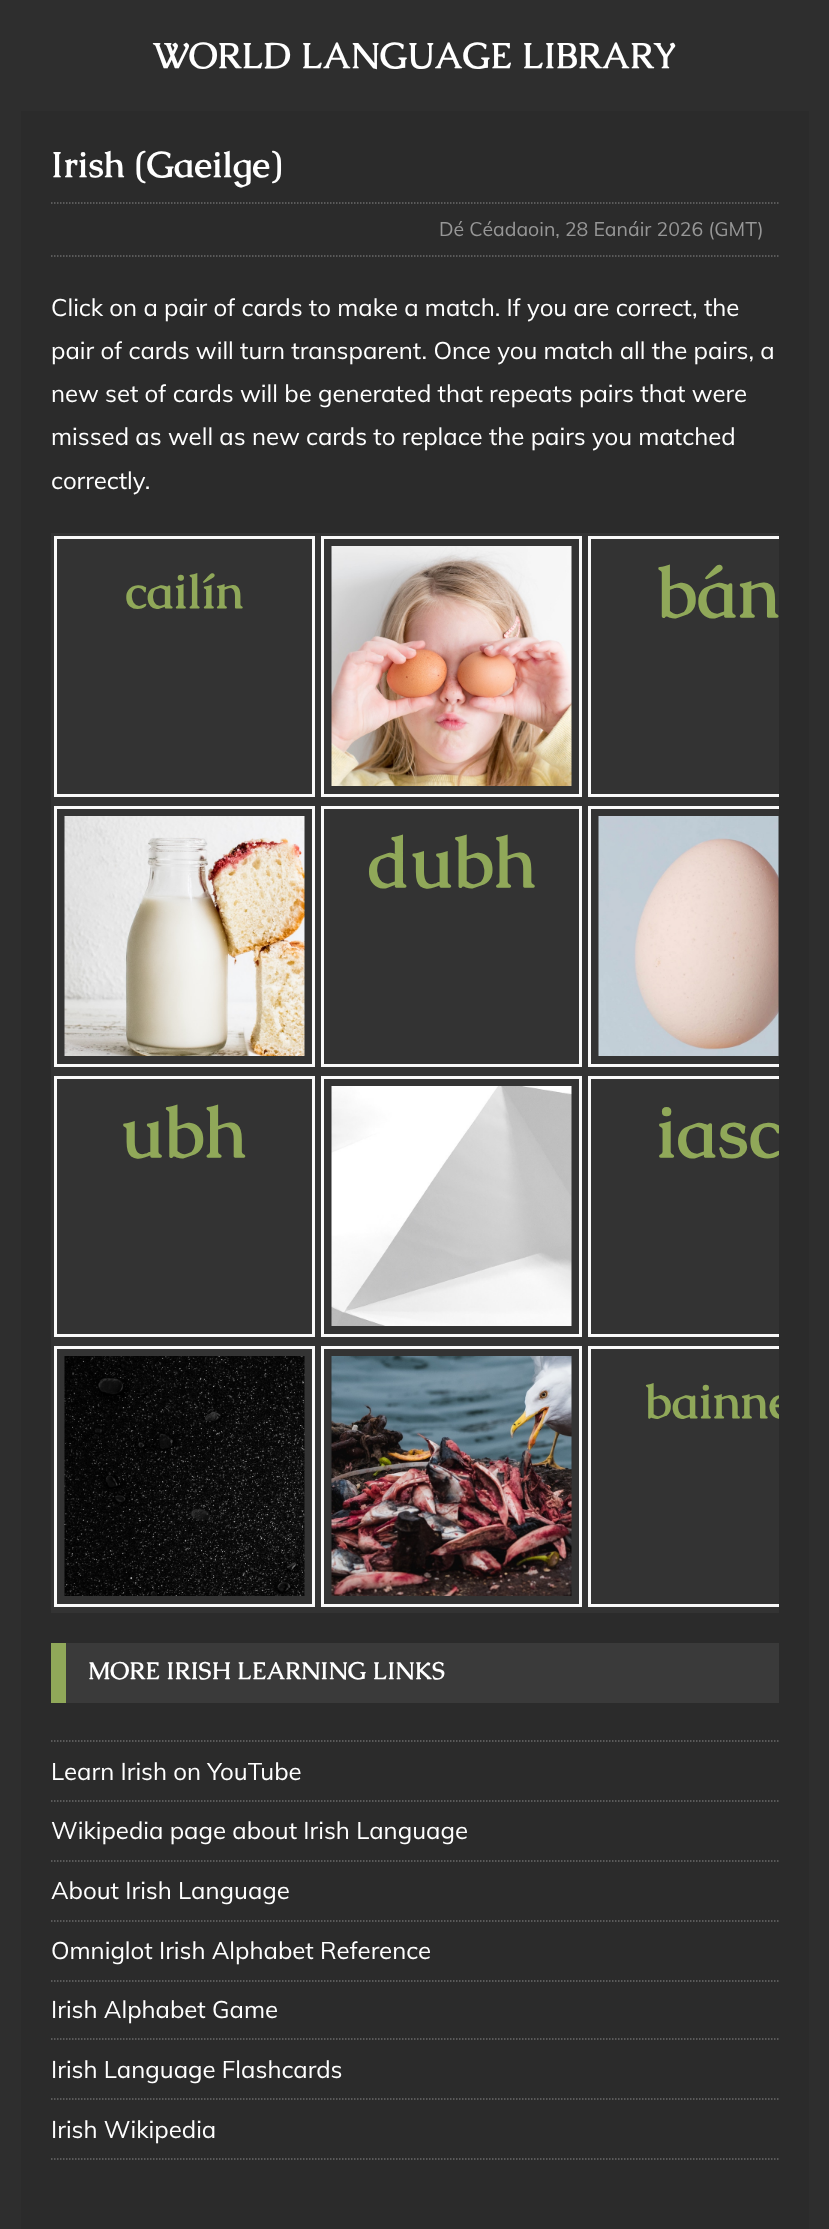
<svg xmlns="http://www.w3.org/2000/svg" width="829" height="2229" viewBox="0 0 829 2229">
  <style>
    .t1 { font: bold 36px Caudex; fill: #fff; }
    .t2 { font: 19.5px Muli; fill: #979797; }
    .t3 { font: 24px Muli; fill: #fff; }
    .t4 { font: bold 48px Caudex; fill: #90a859; }
    .t5 { font: bold 72px Caudex; fill: #90a859; }
    .t6 { font: bold 24px Caudex; fill: #fff; }
  </style>
  <defs>
    <clipPath id="clip1"><rect x="51" y="141" width="728" height="1472"/></clipPath>
  </defs>
  <rect width="100%" height="100%" fill="#2e2e2e"/>
  <text x="153" y="68" class="t1">WORLD LANGUAGE LIBRARY</text>
  <rect x="21" y="111" width="788" height="2118" fill="#2b2b2b"/>
  <text x="51" y="177" class="t1">Irish (Gaeilge)</text>
  <path d="M51 203H778.5" fill="none" stroke="#6b6b6b" stroke-width="1.5" stroke-dasharray="1.5 1.5"/>
  <path d="M51 256H778.5" fill="none" stroke="#6b6b6b" stroke-width="1.5" stroke-dasharray="1.5 1.5"/>
  <text x="439" y="236" class="t2">Dé Céadaoin, 28 Eanáir 2026 (GMT)</text>
  <text x="51" y="316" class="t3">Click on a pair of cards to make a match. If you are correct, the</text>
  <text x="51" y="359" class="t3">pair of cards will turn transparent. Once you match all the pairs, a</text>
  <text x="51" y="402" class="t3">new set of cards will be generated that repeats pairs that were</text>
  <text x="51" y="445" class="t3">missed as well as new cards to replace the pairs you matched</text>
  <text x="51" y="489" class="t3">correctly.</text>
  <rect x="51" y="533" width="728" height="1080" fill="#333"/>
  <rect x="55.5" y="537.5" width="258" height="258" fill="none" stroke="#f9f9f9" stroke-width="3"/>
  <text x="125" y="608" class="t4">cailín</text>
  <rect x="322.5" y="537.5" width="258" height="258" fill="none" stroke="#f9f9f9" stroke-width="3"/>
  <image x="331" y="546" width="241" height="240" href="images/1.png"/>
  <g clip-path="url(#clip1)">
    <rect x="589.5" y="537.5" width="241" height="258" fill="none" stroke="#f9f9f9" stroke-width="3"/>
  </g>
  <text x="657" y="617" class="t5">bán</text>
  <rect x="55.5" y="807.5" width="258" height="258" fill="none" stroke="#f9f9f9" stroke-width="3"/>
  <image x="64" y="816" width="241" height="240" href="images/2.png"/>
  <rect x="322.5" y="807.5" width="258" height="258" fill="none" stroke="#f9f9f9" stroke-width="3"/>
  <text x="367" y="887" class="t5">dubh</text>
  <g clip-path="url(#clip1)">
    <rect x="589.5" y="807.5" width="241" height="258" fill="none" stroke="#f9f9f9" stroke-width="3"/>
  </g>
  <image x="598" y="816" width="181" height="240" href="images/3.png"/>
  <rect x="55.5" y="1077.5" width="258" height="258" fill="none" stroke="#f9f9f9" stroke-width="3"/>
  <text x="121" y="1157" class="t5">ubh</text>
  <rect x="322.5" y="1077.5" width="258" height="258" fill="none" stroke="#f9f9f9" stroke-width="3"/>
  <image x="331" y="1086" width="241" height="240" href="images/4.png"/>
  <g clip-path="url(#clip1)">
    <rect x="589.5" y="1077.5" width="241" height="258" fill="none" stroke="#f9f9f9" stroke-width="3"/>
    <text x="656" y="1157" class="t5">iasc</text>
  </g>
  <rect x="55.5" y="1347.5" width="258" height="258" fill="none" stroke="#f9f9f9" stroke-width="3"/>
  <image x="64" y="1356" width="241" height="240" href="images/5.png"/>
  <rect x="322.5" y="1347.5" width="258" height="258" fill="none" stroke="#f9f9f9" stroke-width="3"/>
  <image x="331" y="1356" width="241" height="240" href="images/6.png"/>
  <g clip-path="url(#clip1)">
    <rect x="589.5" y="1347.5" width="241" height="258" fill="none" stroke="#f9f9f9" stroke-width="3"/>
    <text x="645" y="1418" class="t4">bainne</text>
  </g>
  <rect x="66" y="1643" width="713" height="60" fill="#3a3a3a"/>
  <rect x="51" y="1643" width="15" height="60" fill="#90a859"/>
  <text x="88" y="1679" class="t6">MORE IRISH LEARNING LINKS</text>
  <path d="M51 1741H778.5" fill="none" stroke="#6b6b6b" stroke-width="1.5" stroke-dasharray="1.5 1.5"/>
  <path d="M51 1801H778.5" fill="none" stroke="#6b6b6b" stroke-width="1.5" stroke-dasharray="1.5 1.5"/>
  <text x="51" y="1780" class="t3">Learn Irish on YouTube</text>
  <path d="M51 1861H778.5" fill="none" stroke="#6b6b6b" stroke-width="1.5" stroke-dasharray="1.5 1.5"/>
  <text x="51" y="1839" class="t3">Wikipedia page about Irish Language</text>
  <path d="M51 1921H778.5" fill="none" stroke="#6b6b6b" stroke-width="1.5" stroke-dasharray="1.5 1.5"/>
  <text x="51" y="1899" class="t3">About Irish Language</text>
  <path d="M51 1981H778.5" fill="none" stroke="#6b6b6b" stroke-width="1.5" stroke-dasharray="1.5 1.5"/>
  <text x="51" y="1959" class="t3">Omniglot Irish Alphabet Reference</text>
  <path d="M51 2039H778.5" fill="none" stroke="#6b6b6b" stroke-width="1.5" stroke-dasharray="1.5 1.5"/>
  <text x="51" y="2018" class="t3">Irish Alphabet Game</text>
  <path d="M51 2099H778.5" fill="none" stroke="#6b6b6b" stroke-width="1.5" stroke-dasharray="1.5 1.5"/>
  <text x="51" y="2078" class="t3">Irish Language Flashcards</text>
  <path d="M51 2159H778.5" fill="none" stroke="#6b6b6b" stroke-width="1.5" stroke-dasharray="1.5 1.5"/>
  <text x="51" y="2138" class="t3">Irish Wikipedia</text>
</svg>
